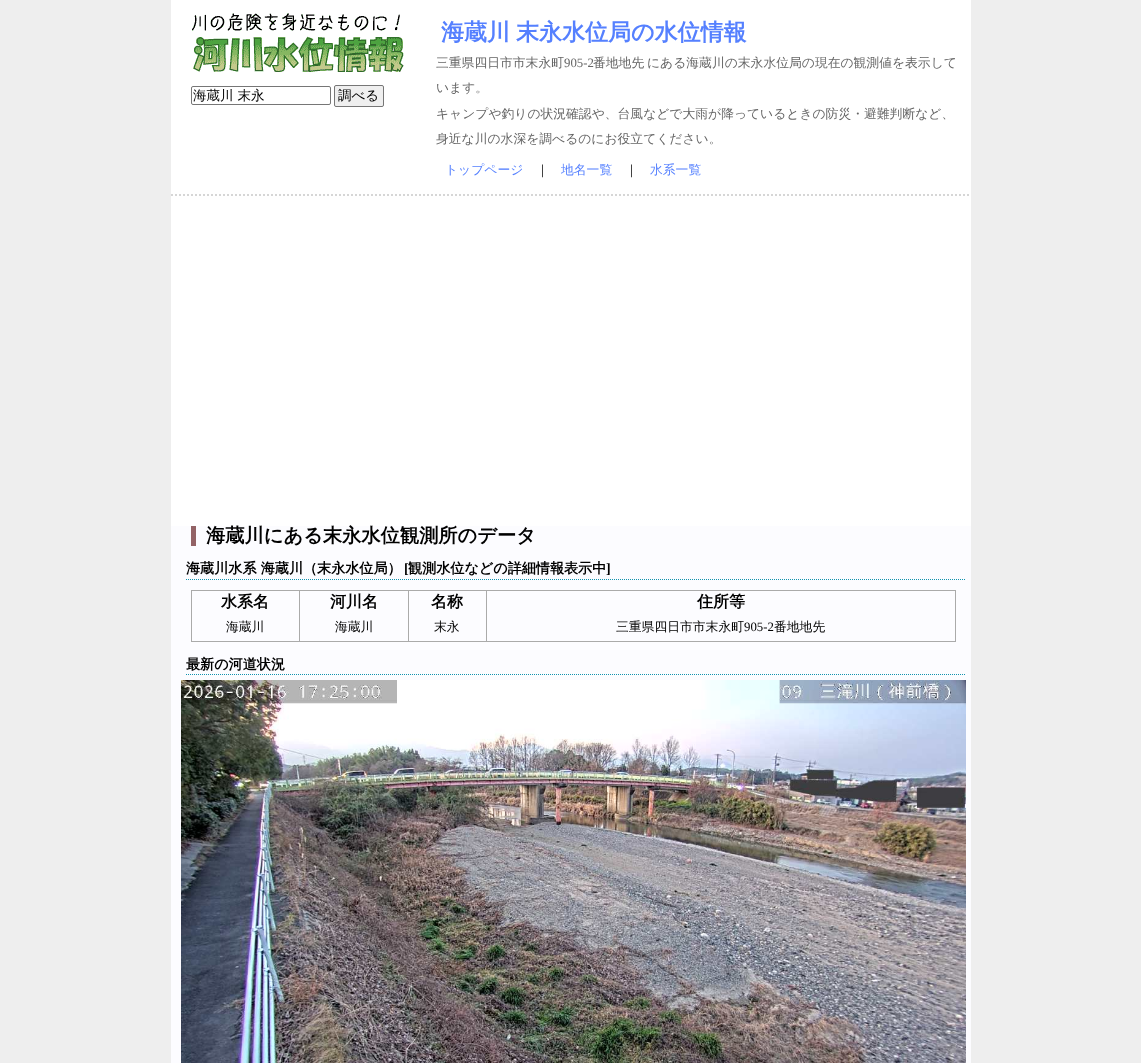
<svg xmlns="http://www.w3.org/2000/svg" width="1141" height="1063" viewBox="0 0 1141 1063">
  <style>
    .t1 { font: 500 13.5px WenQuanYi Zen Hei; fill: #000; }
    .t2 { font: bold 23px WenQuanYi Zen Hei; fill: #5580ff; }
    .t3 { font: 500 12.8px WenQuanYi Zen Hei; fill: #666; }
    .t4 { font: 12.8px Liberation Serif; fill: #666; }
    .t5 { font: 500 12.8px WenQuanYi Zen Hei; fill: #5580ff; }
    .t6 { font: 500 12.8px WenQuanYi Zen Hei; fill: #000; }
    .t7 { font: bold 19.25px WenQuanYi Zen Hei; fill: #000; }
    .t8 { font: bold 14.1px WenQuanYi Zen Hei; fill: #000; }
    .t9 { font: bold 14.1px Liberation Serif; fill: #000; }
    .t10 { font: bold 16px WenQuanYi Zen Hei; fill: #000; }
    .t11 { font: 12.8px Liberation Serif; fill: #000; }
  </style>
  <rect width="100%" height="100%" fill="#eee"/>
  <rect x="171" y="0" width="800" height="526" fill="#fff"/>
  <path d="M171 195H971" fill="none" stroke="#d6d6d6" stroke-width="2" stroke-dasharray="2 2"/>
  <image x="192" y="13" width="212" height="59" href="images/1.png"/>
  <rect x="191.5" y="86.5" width="139" height="18" rx="1.5" fill="none" stroke="#767676"/>
  <text x="193" y="100" class="t1">海蔵川 末永</text>
  <rect x="334.5" y="85.5" width="49" height="21" rx="1.5" fill="#efefef" stroke="#767676"/>
  <text x="338" y="100" class="t1">調べる</text>
  <text x="441" y="40" word-spacing="-1" class="t2">海蔵川 末永水位局の水位情報</text>
  <text x="436" y="67" class="t3">三重県四日市市末永町</text>
  <text x="564" y="67" class="t4">905-2</text>
  <text x="593" y="67" word-spacing="-1" class="t3">番地地先 にある海蔵川の末永水位局の現在の観測値を表示して</text>
  <text x="436" y="92" class="t3">います。</text>
  <text x="436" y="118" class="t3">キャンプや釣りの状況確認や、台風などで大雨が降っているときの防災・避難判断など、</text>
  <text x="436" y="143" class="t3">身近な川の水深を調べるのにお役立てください。</text>
  <text x="445" y="174" class="t5">トップページ</text>
  <text x="536" y="174" class="t6">｜</text>
  <text x="561" y="174" class="t5">地名一覧</text>
  <text x="625" y="174" class="t6">｜</text>
  <text x="650" y="174" class="t5">水系一覧</text>
  <rect x="171" y="526" width="800" height="537" fill="#fcfcff"/>
  <rect x="191" y="526" width="5" height="20" fill="#936366"/>
  <text x="206" y="542" class="t7">海蔵川にある末永水位観測所のデータ</text>
  <path d="M186 579.5H966" fill="none" stroke="#1193ae" stroke-dasharray="1 1"/>
  <text x="186" y="573" class="t8">海蔵川水系 海蔵川（末永水位局）</text>
  <text x="404" y="573" class="t9">[</text>
  <text x="408" y="573" class="t8">観測水位などの詳細情報表示中</text>
  <text x="606" y="573" class="t9">]</text>
  <rect x="191" y="590" width="765" height="1" fill="#aaa"/>
  <rect x="955" y="590" width="1" height="52" fill="#aaa"/>
  <rect x="191" y="641" width="765" height="1" fill="#aaa"/>
  <rect x="191" y="590" width="1" height="52" fill="#aaa"/>
  <text x="221" y="607" class="t10">水系名</text>
  <text x="330" y="607" class="t10">河川名</text>
  <text x="431" y="607" class="t10">名称</text>
  <text x="697" y="607" class="t10">住所等</text>
  <text x="226" y="631" class="t6">海蔵川</text>
  <rect x="299" y="590" width="1" height="52" fill="#aaa"/>
  <text x="335" y="631" class="t6">海蔵川</text>
  <rect x="408" y="590" width="1" height="52" fill="#aaa"/>
  <text x="434" y="631" class="t6">末永</text>
  <rect x="486" y="590" width="1" height="52" fill="#aaa"/>
  <text x="616" y="631" class="t6">三重県四日市市末永町</text>
  <text x="744" y="631" class="t11">905-2</text>
  <text x="774" y="631" class="t6">番地地先</text>
  <path d="M186 674.5H966" fill="none" stroke="#1193ae" stroke-dasharray="1 1"/>
  <text x="186" y="669" class="t8">最新の河道状況</text>
  <image x="181" y="680" width="785" height="383" href="images/2.png"/>
</svg>
